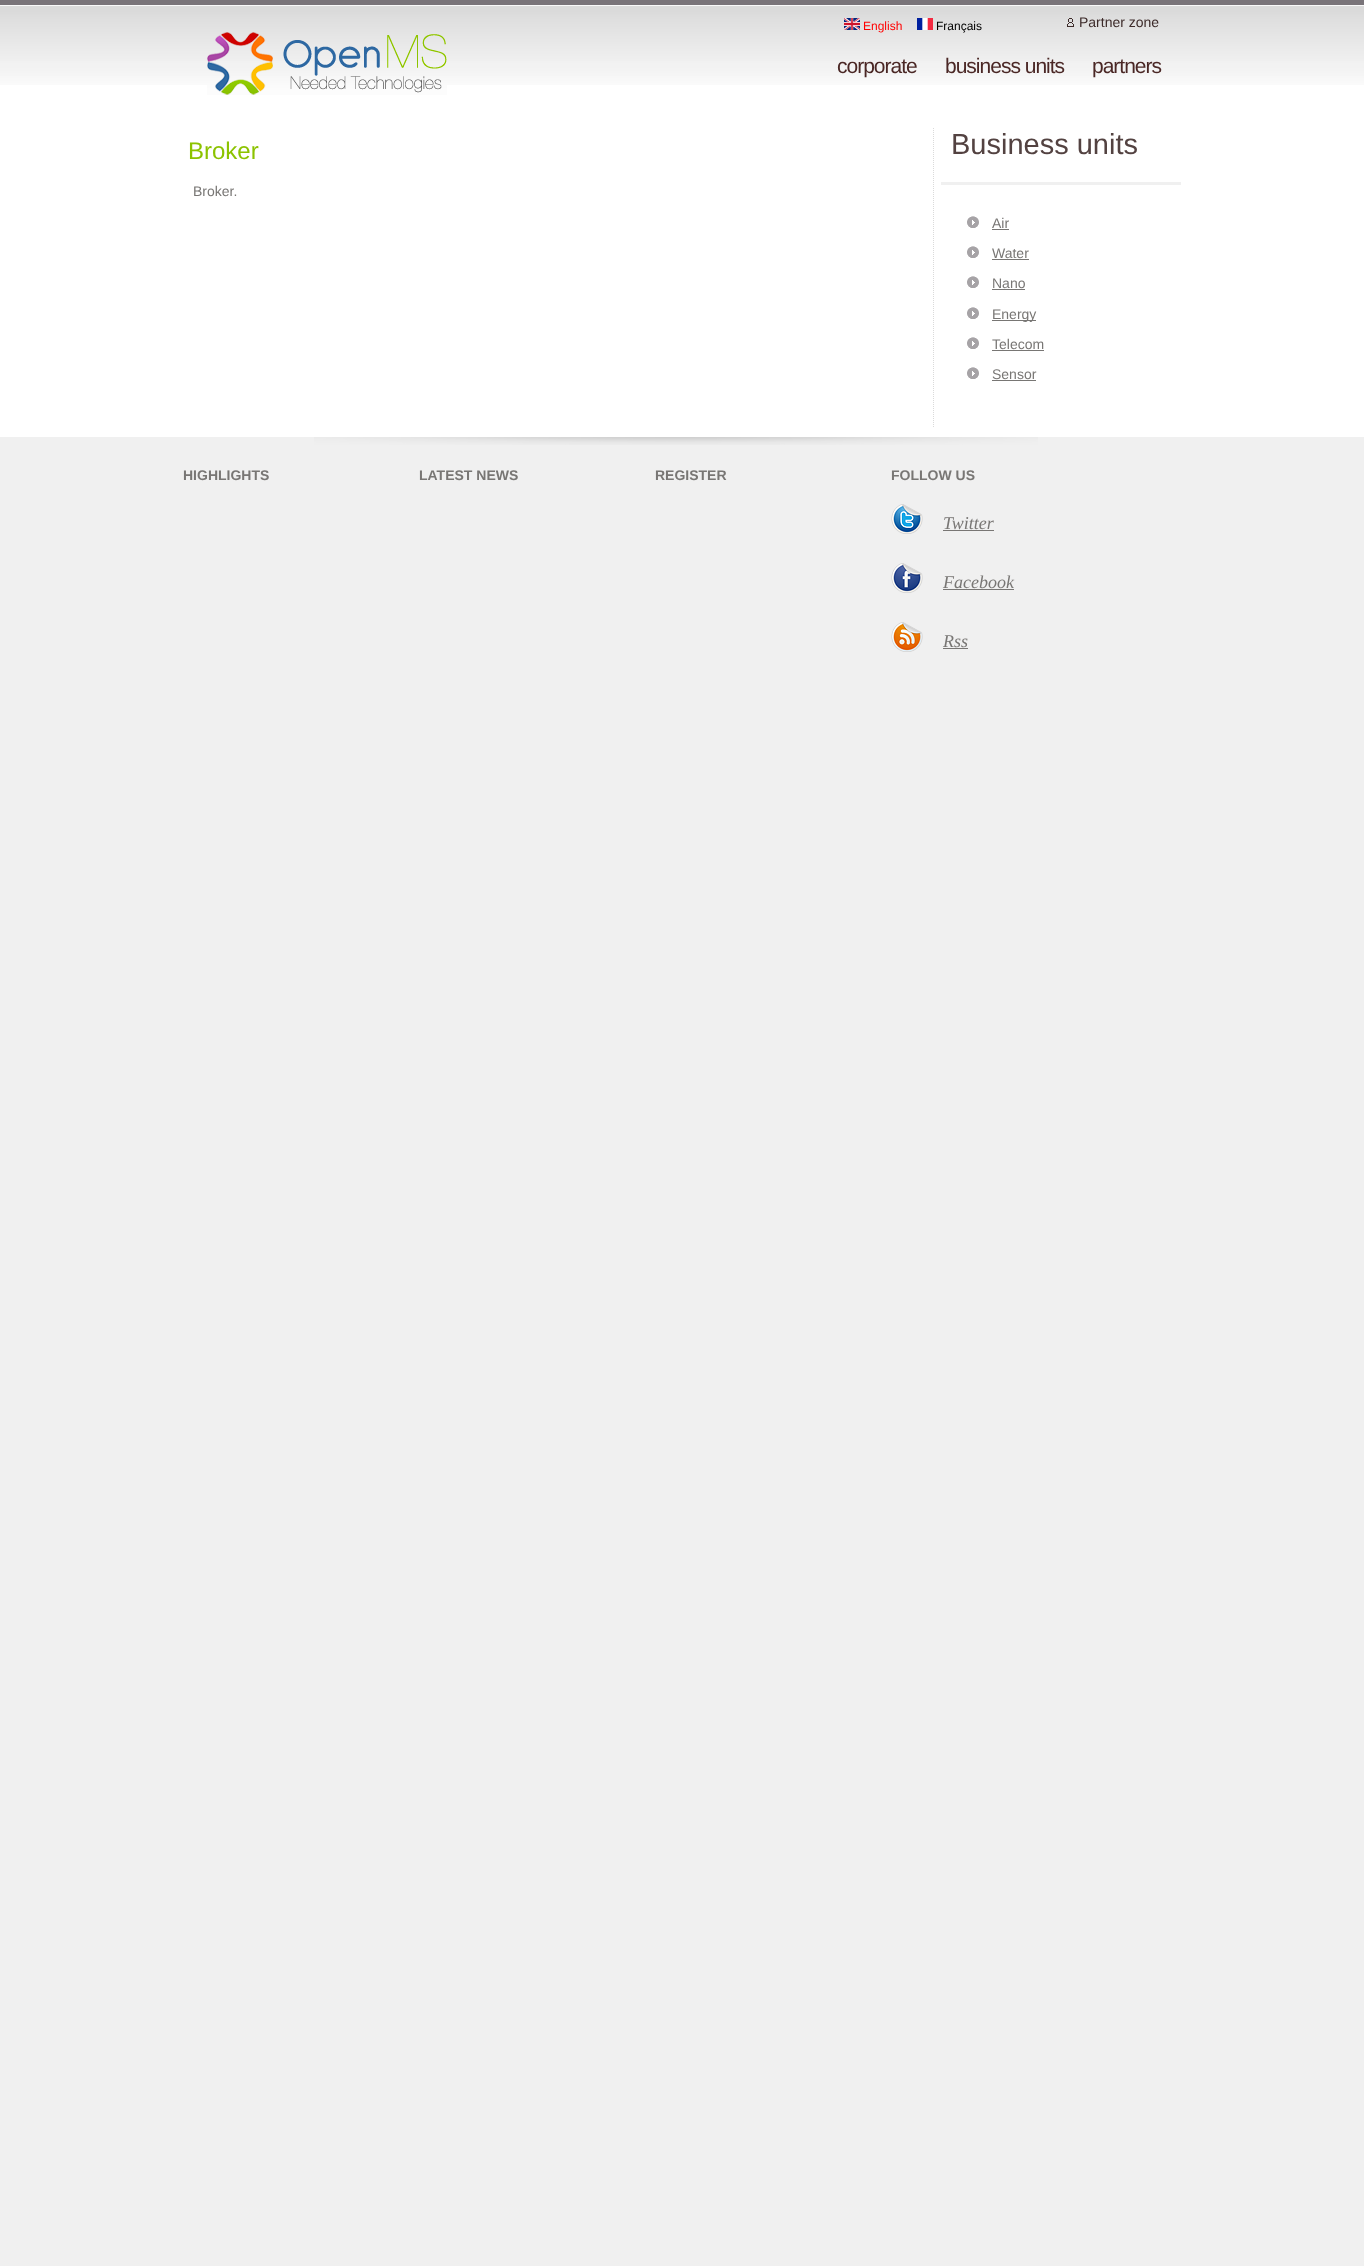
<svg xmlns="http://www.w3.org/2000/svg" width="1364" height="2266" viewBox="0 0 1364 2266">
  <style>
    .t1 { font: 12px Liberation Sans; fill: #f00; }
    .t2 { font: 12px Liberation Sans; fill: #000; }
    .t3 { font: 14px Liberation Sans; fill: #3d2b2a; }
    .t4 { font: 21px Liberation Sans; letter-spacing: -1px; fill: #4a2725; }
    .t5 { font: 24px Liberation Sans; fill: #8cc300; }
    .t6 { font: 14px Liberation Sans; fill: #787674; }
    .t7 { font: 29px Liberation Sans; fill: #534241; }
    .t8 { font: bold 14px Liberation Sans; fill: #787674; }
    .t9 { font: italic 18px Liberation Serif; fill: #787674; }
  </style>
  <rect width="100%" height="100%" fill="#f0f0f0"/>
  <rect x="0" y="85" width="1364" height="352" fill="#fff"/>
  <image x="0" y="0" width="1364" height="85" href="images/1.png"/>
  <image x="207" y="32" width="240" height="63" href="images/2.png"/>
  <image x="844" y="18" width="16" height="12" href="images/3.png"/>
  <text x="863" y="30" class="t1">English</text>
  <image x="917" y="18" width="16" height="12" href="images/4.png"/>
  <text x="936" y="30" class="t2">Français</text>
  <image x="1067" y="18" width="7" height="9" href="images/5.png"/>
  <text x="1079" y="27" class="t3">Partner zone</text>
  <text x="837" y="73" class="t4">corporate</text>
  <text x="945" y="73" class="t4">business units</text>
  <text x="1092" y="73" class="t4">partners</text>
  <image x="933" y="128" width="1" height="299" href="images/6.png"/>
  <text x="188" y="159" class="t5">Broker</text>
  <text x="193" y="196" class="t6">Broker.</text>
  <rect x="941" y="182" width="240" height="3" fill="#f0f0f0"/>
  <text x="951" y="154" class="t7">Business units</text>
  <image x="967" y="216" width="12" height="12" href="images/7.png"/>
  <text x="992" y="228" class="t6">Air</text>
  <rect x="992" y="229" width="17" height="1" fill="#787674"/>
  <image x="967" y="246" width="12" height="12" href="images/7.png"/>
  <text x="992" y="258" class="t6">Water</text>
  <rect x="992" y="259" width="37" height="1" fill="#787674"/>
  <image x="967" y="276" width="12" height="12" href="images/7.png"/>
  <text x="992" y="288" class="t6">Nano</text>
  <rect x="992" y="289" width="33" height="1" fill="#787674"/>
  <image x="967" y="307" width="12" height="12" href="images/7.png"/>
  <rect x="992" y="320" width="44" height="1" fill="#787674"/>
  <text x="992" y="319" class="t6">Energy</text>
  <image x="967" y="337" width="12" height="12" href="images/7.png"/>
  <text x="992" y="349" class="t6">Telecom</text>
  <rect x="992" y="350" width="52" height="1" fill="#787674"/>
  <image x="967" y="367" width="12" height="12" href="images/7.png"/>
  <text x="992" y="379" class="t6">Sensor</text>
  <rect x="992" y="380" width="44" height="1" fill="#787674"/>
  <image x="314" y="437" width="724" height="8" href="images/8.png"/>
  <text x="183" y="480" class="t8">HIGHLIGHTS</text>
  <text x="419" y="480" class="t8">LATEST NEWS</text>
  <text x="655" y="480" class="t8">REGISTER</text>
  <text x="891" y="480" class="t8">FOLLOW US</text>
  <image x="891" y="504" width="32" height="30" href="images/9.png"/>
  <text x="943" y="529" class="t9">Twitter</text>
  <rect x="943" y="530" width="51" height="1" fill="#787674"/>
  <image x="891" y="563" width="32" height="30" href="images/10.png"/>
  <text x="943" y="588" class="t9">Facebook</text>
  <rect x="943" y="589" width="71" height="1" fill="#787674"/>
  <image x="891" y="622" width="32" height="30" href="images/11.png"/>
  <text x="943" y="647" class="t9">Rss</text>
  <rect x="943" y="648" width="25" height="1" fill="#787674"/>
</svg>
